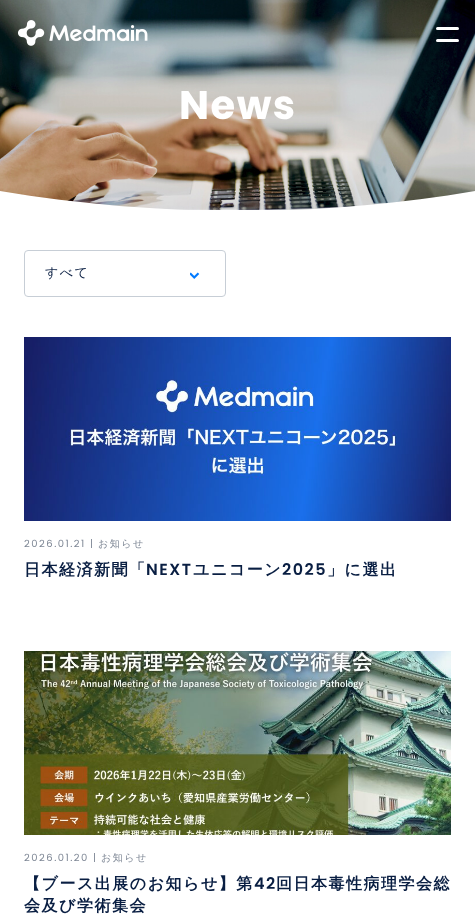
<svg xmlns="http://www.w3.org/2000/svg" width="475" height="914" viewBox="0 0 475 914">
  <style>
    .t1 { font: bold 40px Poppins; letter-spacing: 1.5px; fill: #fff; }
    .t2 { font: 500 13px WenQuanYi Zen Hei; letter-spacing: 1.5px; fill: #091e42; }
    .t3 { font: 10px Poppins; letter-spacing: 1.5px; fill: #7e8795; }
    .t4 { font: 500 10px WenQuanYi Zen Hei; letter-spacing: 1.5px; fill: #7e8795; }
    .t5 { font: bold 16px WenQuanYi Zen Hei; letter-spacing: 1.5px; fill: #091e42; }
    .t6 { font: 600 16px Poppins; letter-spacing: 1.5px; fill: #091e42; }
  </style>
  <rect width="100%" height="100%" fill="#fff"/>
  <image x="0" y="0" width="475" height="210" href="images/2.png"/>
  <image x="18" y="20" width="130" height="26" href="images/1.png"/>
  <rect x="436" y="27" width="23" height="3" rx="1.5" fill="#fff"/>
  <rect x="436" y="39" width="23" height="3" rx="1.5" fill="#fff"/>
  <text x="179" y="119" class="t1">News</text>
  <path d="M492 188V211H-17V188C151 218 324 219 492 188Z" fill="#fff" fill-rule="evenodd"/>
  <rect x="24.5" y="250.5" width="201" height="46" rx="3.5" fill="none" stroke="#c7ced6"/>
  <text x="45" y="277" class="t2">すべて</text>
  <image x="190" y="272" width="10" height="7" href="images/3.png"/>
  <image x="24" y="337" width="427" height="184" href="images/4.png"/>
  <text x="24" y="547" class="t3">2026.01.21 |</text>
  <text x="98" y="547" class="t4">お知らせ</text>
  <text x="24" y="575" class="t5">日本経済新聞「</text>
  <text x="146" y="575" class="t6">NEXT</text>
  <text x="193" y="575" class="t5">ユニコーン</text>
  <text x="282" y="575" class="t6">2025</text>
  <text x="327" y="575" class="t5">」に選出</text>
  <image x="24" y="651" width="427" height="184" href="images/5.png"/>
  <text x="24" y="861" class="t3">2026.01.20 |</text>
  <text x="101" y="861" class="t4">お知らせ</text>
  <text x="24" y="889" class="t5">【ブース出展のお知らせ】第</text>
  <text x="254" y="889" class="t6">42</text>
  <text x="276" y="889" class="t5">回日本毒性病理学会総</text>
  <text x="24" y="911" class="t5">会及び学術集会</text>
</svg>
